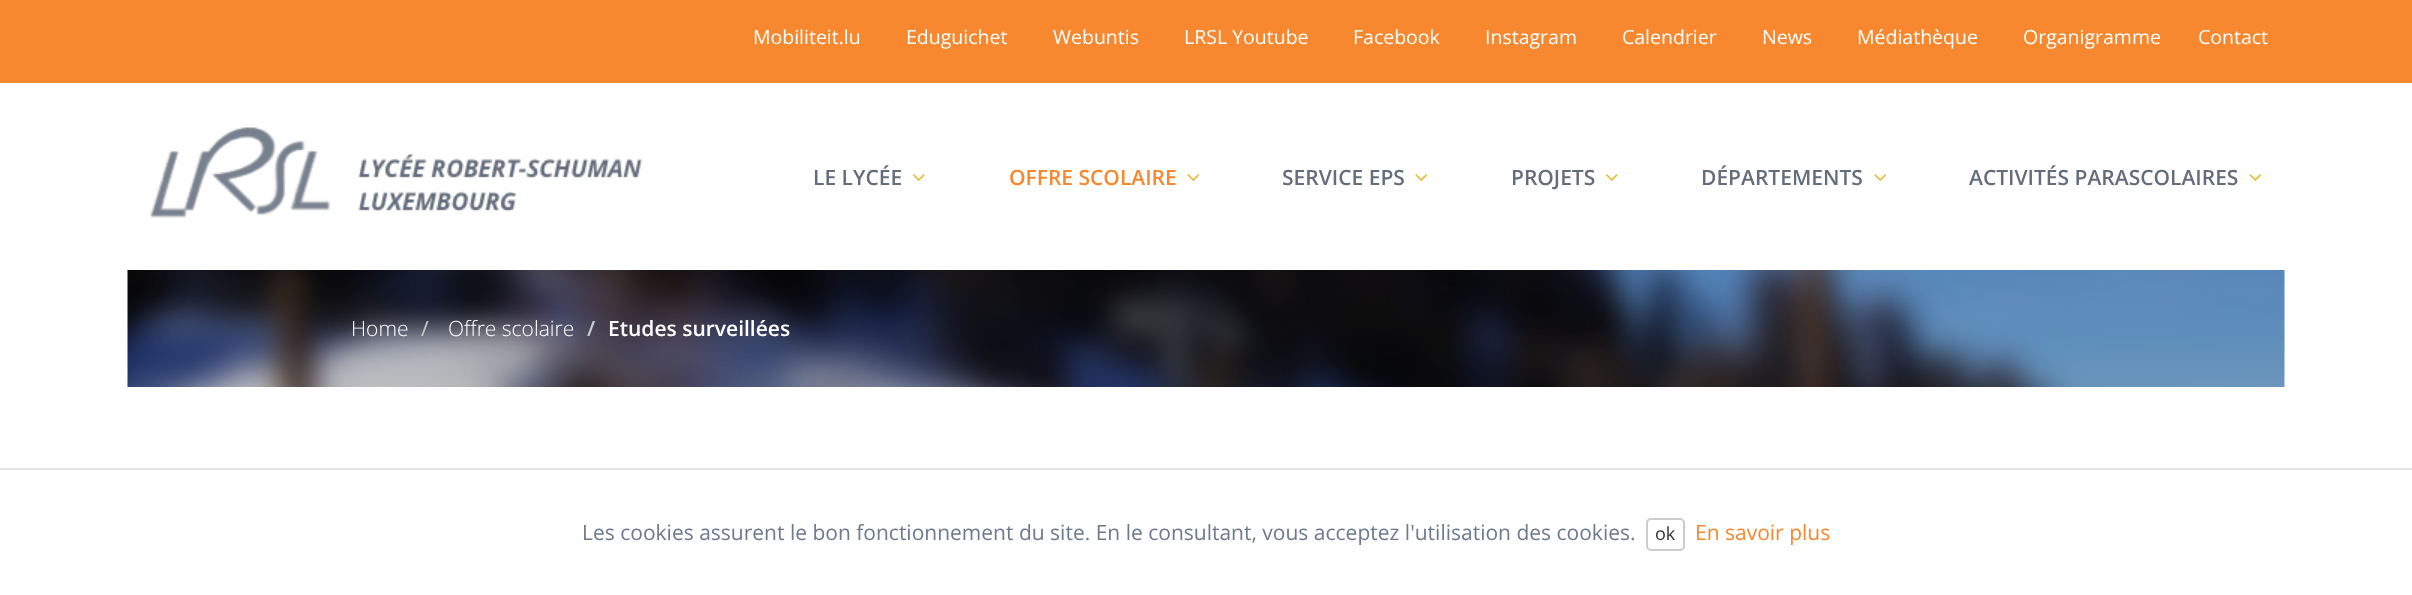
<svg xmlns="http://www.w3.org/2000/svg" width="2412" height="595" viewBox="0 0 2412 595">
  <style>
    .t1 { font: 19.5px Open Sans; fill: #fff; }
    .t2 { font: 600 21px Open Sans; fill: #636d7b; }
    .t3 { font: 600 21px Open Sans; fill: #f7882f; }
    .t4 { font: 300 21px Open Sans; fill: #fff; }
    .t5 { font: 21px Open Sans; fill: #ccc; }
    .t6 { font: 600 21px Open Sans; fill: #ccc; }
    .t7 { font: 600 21px Open Sans; fill: #fff; }
    .t8 { font: 21px Open Sans; fill: #6b7a8f; }
    .t9 { font: 18px Open Sans; fill: #333; }
    .t10 { font: 21px Open Sans; fill: #f7882f; }
  </style>
  <rect width="100%" height="100%" fill="#fff"/>
  <rect x="0" y="0" width="2412" height="83" fill="#f7882f"/>
  <text x="753" y="44" class="t1">Mobiliteit.lu</text>
  <text x="906" y="44" class="t1">Eduguichet</text>
  <text x="1053" y="44" class="t1">Webuntis</text>
  <text x="1184" y="44" class="t1">LRSL Youtube</text>
  <text x="1353" y="44" class="t1">Facebook</text>
  <text x="1485" y="44" class="t1">Instagram</text>
  <text x="1622" y="44" class="t1">Calendrier</text>
  <text x="1762" y="44" class="t1">News</text>
  <text x="1857" y="44" class="t1">Médiathèque</text>
  <text x="2023" y="44" class="t1">Organigramme</text>
  <text x="2198" y="44" class="t1">Contact</text>
  <image x="150" y="127" width="493" height="91" href="images/1.png"/>
  <text x="813" y="185" class="t2">LE LYCÉE</text>
  <image x="913" y="174" width="12" height="7" href="images/2.png"/>
  <text x="1009" y="185" class="t3">OFFRE SCOLAIRE</text>
  <image x="1187" y="174" width="12" height="7" href="images/3.png"/>
  <text x="1282" y="185" class="t2">SERVICE EPS</text>
  <image x="1415" y="174" width="12" height="7" href="images/3.png"/>
  <text x="1511" y="185" class="t2">PROJETS</text>
  <image x="1606" y="174" width="12" height="7" href="images/2.png"/>
  <text x="1701" y="185" class="t2">DÉPARTEMENTS</text>
  <image x="1874" y="174" width="12" height="7" href="images/3.png"/>
  <text x="1969" y="185" class="t2">ACTIVITÉS PARASCOLAIRES</text>
  <image x="2249" y="174" width="12" height="7" href="images/3.png"/>
  <image x="127" y="270" width="2158" height="117" href="images/4.png"/>
  <text x="351" y="336" class="t4">Home</text>
  <text x="421" y="336" class="t5">/</text>
  <text x="448" y="336" class="t4">Offre scolaire</text>
  <text x="587" y="336" class="t6">/</text>
  <text x="608" y="336" class="t7">Etudes surveillées</text>
  <rect x="0" y="468" width="2412" height="2" fill="#e3e3e3"/>
  <text x="582" y="540" class="t8">Les cookies assurent le bon fonctionnement du site. En le consultant, vous acceptez l'utilisation des cookies.</text>
  <rect x="1647" y="519" width="37" height="31" rx="4" fill="none" stroke="#ccc" stroke-width="2"/>
  <text x="1655" y="540" class="t9">ok</text>
  <text x="1695" y="540" class="t10">En savoir plus</text>
</svg>
